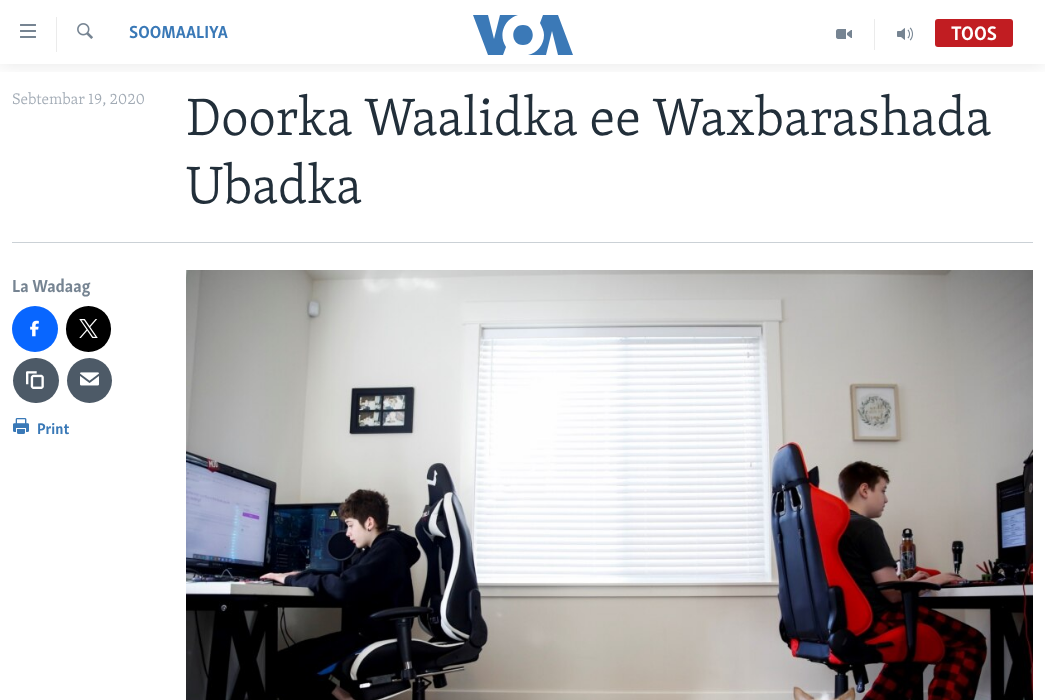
<svg xmlns="http://www.w3.org/2000/svg" width="1045" height="700" viewBox="0 0 1045 700">
  <style>
    .t1 { font: bold 18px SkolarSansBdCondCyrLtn; fill: #3a79b7; }
    .t2 { font: bold 20px SkolarSansBdCondCyrLtn; fill: #fff; }
    .t3 { font: 300 15.75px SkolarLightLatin; fill: #a1aab4; }
    .t4 { font: 300 54px SkolarLightLatin; fill: #222f3a; }
    .t5 { font: bold 18px SkolarSansBdCondCyrLtn; fill: #768492; }
    .t6 { font: bold 15.75px SkolarSansBdCondCyrLtn; fill: #3a79b7; }
  </style>
  <defs>
    <clipPath id="clip1"><rect x="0" y="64" width="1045" height="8"/></clipPath>
  </defs>
  <rect width="100%" height="100%" fill="#fff"/>
  <g clip-path="url(#clip1)">
    <rect x="0" y="0" width="1045" height="64" fill="#0000001a" filter="blur(10px)"/>
  </g>
  <image x="20" y="24" width="16" height="14" href="images/1.png"/>
  <rect x="56" y="17" width="1" height="35" fill="#ebebeb"/>
  <image x="77" y="23" width="16" height="16" href="images/2.png"/>
  <text x="129" y="38" class="t1">SOOMAALIYA</text>
  <path d="M506 47L503 55H488L473 15H488L494 39L500 15H518C504 19 498 35 506 47ZM523 25C510 25 510 45 523 45C536 45 536 25 523 25ZM544 35C544 45 537 53 528 55H546L552 31L558 55H573L558 15H543L540 23C542 27 544 31 544 35Z" fill="#3b79b7"/>
  <rect x="874" y="19" width="1" height="31" fill="#ebebeb"/>
  <image x="836" y="29" width="16" height="10" href="images/3.png"/>
  <image x="897" y="27" width="16" height="14" href="images/4.png"/>
  <rect x="935" y="19" width="78" height="28" rx="3" fill="#c11d22"/>
  <text x="951" y="40" class="t2">TOOS</text>
  <text x="12" y="104" class="t3">Sebtembar 19, 2020</text>
  <text x="186" y="135" class="t4">Doorka Waalidka ee Waxbarashada</text>
  <text x="186" y="203" class="t4">Ubadka</text>
  <rect x="12" y="242" width="1021" height="1" fill="#cbd1d6"/>
  <text x="12" y="292" class="t5">La Wadaag</text>
  <circle cx="35" cy="329" r="23" fill="#0866ff"/>
  <image x="30" y="320" width="9" height="17" href="images/5.png"/>
  <rect x="66" y="306" width="45" height="46" rx="22.5" fill="#000"/>
  <image x="79" y="319" width="19" height="19" href="images/6.png"/>
  <rect x="13" y="358" width="46" height="45" rx="22.5" fill="#4d5a67"/>
  <image x="26" y="371" width="18" height="18" href="images/7.png"/>
  <circle cx="89.5" cy="380.5" r="22.5" fill="#4d5a67"/>
  <image x="80" y="372" width="19" height="14" href="images/8.png"/>
  <image x="13" y="418" width="16" height="16" href="images/9.png"/>
  <text x="37" y="434" class="t6">Print</text>
  <image x="186" y="270" width="847" height="430" href="images/10.png"/>
</svg>
